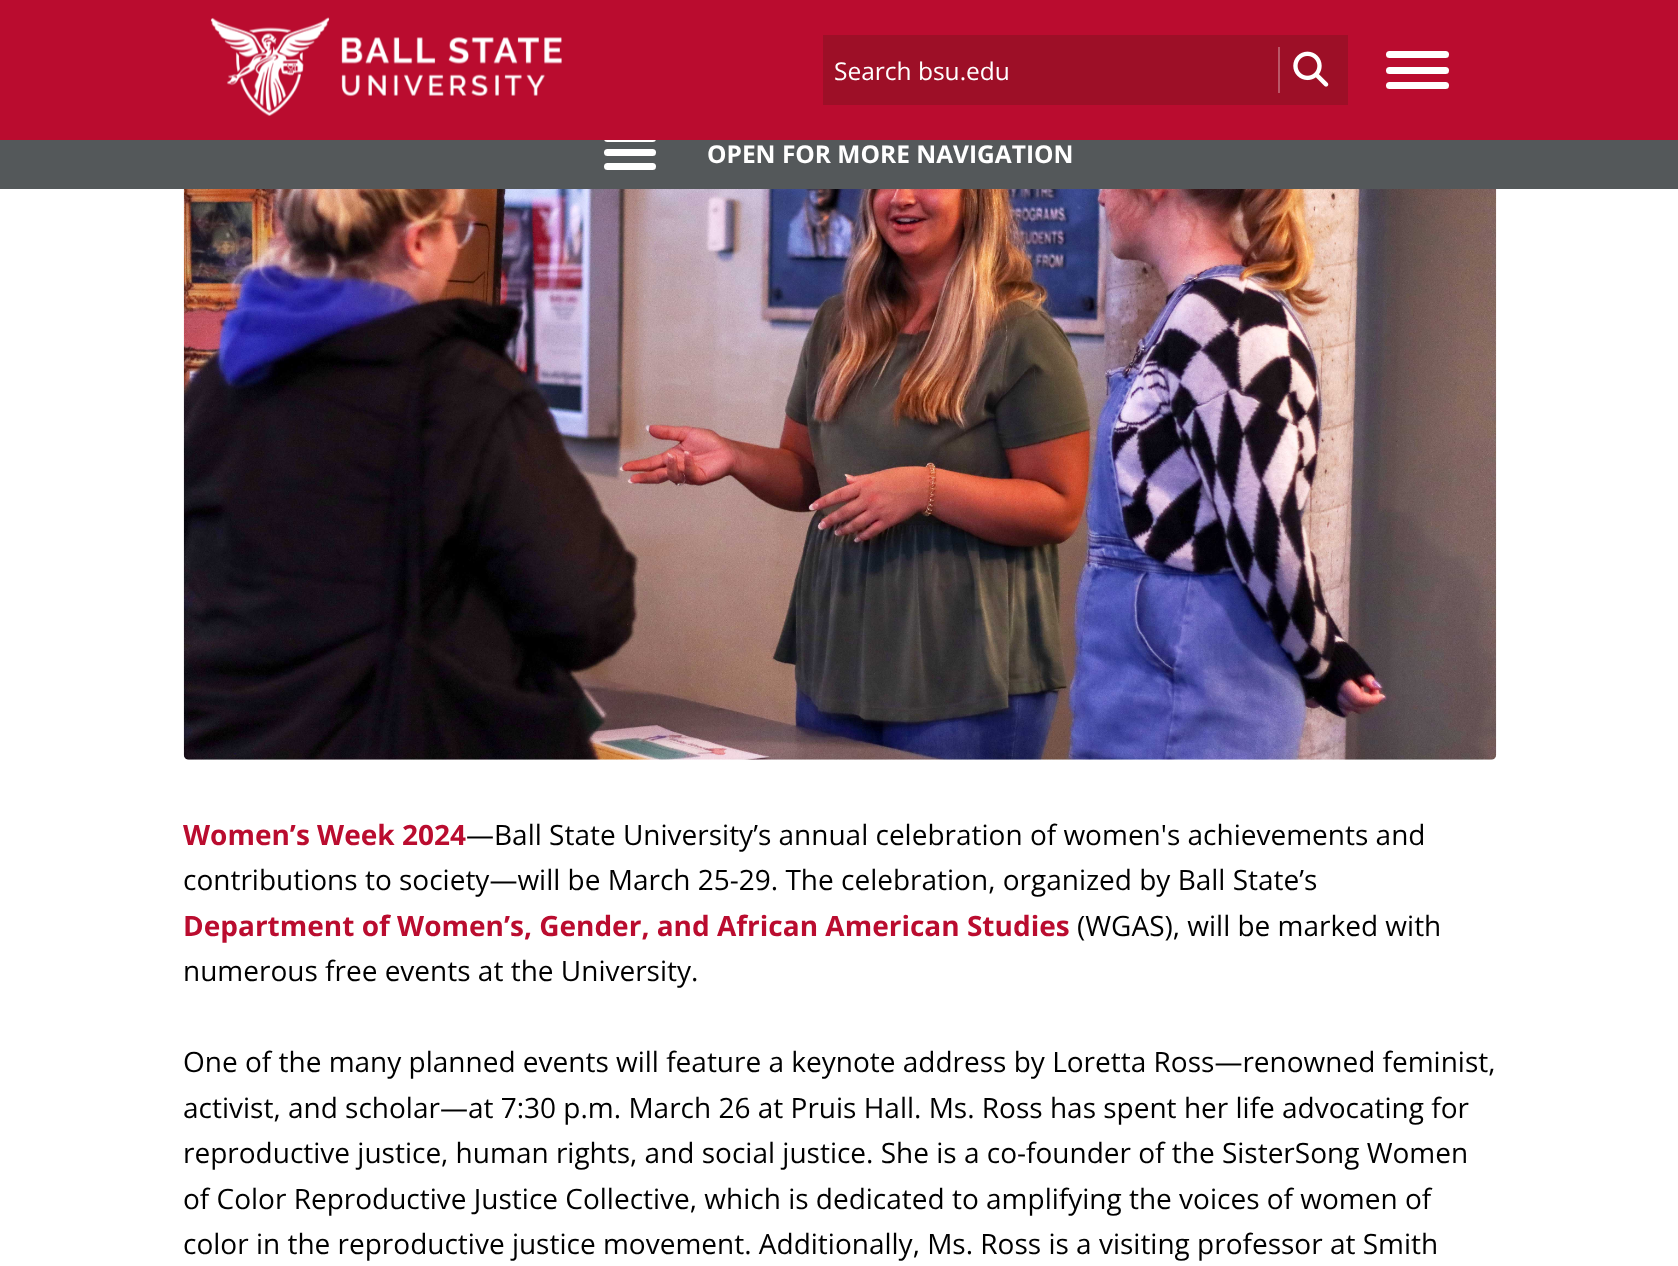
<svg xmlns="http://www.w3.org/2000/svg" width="1678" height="1266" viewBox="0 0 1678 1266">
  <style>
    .t1 { font: 24.5px Open Sans; fill: #fff; }
    .t2 { font: bold 24.5px Open Sans; fill: #fff; }
    .t3 { font: bold 28px Open Sans; fill: #ba0c2f; }
    .t4 { font: 28px Open Sans; fill: #000; }
  </style>
  <rect width="100%" height="100%" fill="#fff"/>
  <rect x="0" y="140" width="1678" height="49" fill="#54585a"/>
  <rect x="604" y="135" width="52" height="7" rx="3.5" fill="#fff"/>
  <rect x="0" y="0" width="1678" height="140" fill="#ba0c2f"/>
  <image x="210" y="17" width="352" height="99" href="images/1.png"/>
  <rect x="823" y="35" width="455" height="70" fill="#9d0f27"/>
  <text x="834" y="80" class="t1">Search bsu.edu</text>
  <rect x="1280" y="35" width="68" height="70" fill="#9d0f27"/>
  <rect x="1278" y="35" width="2" height="12" fill="#9d0f27"/>
  <rect x="1278" y="47" width="2" height="46" fill="#bb5768"/>
  <image x="1293" y="51" width="36" height="36" href="images/2.png"/>
  <rect x="1278" y="93" width="2" height="12" fill="#9d0f27"/>
  <rect x="1386" y="51" width="63" height="7" rx="3.5" fill="#fff"/>
  <rect x="1386" y="67" width="63" height="7" rx="3.5" fill="#fff"/>
  <rect x="1386" y="82" width="63" height="7" rx="3.5" fill="#fff"/>
  <rect x="604" y="149" width="52" height="7" rx="3.5" fill="#fff"/>
  <rect x="604" y="163" width="52" height="7" rx="3.5" fill="#fff"/>
  <text x="707" y="163" class="t2">OPEN FOR MORE NAVIGATION</text>
  <image x="183" y="189" width="1314" height="571" href="images/3.png"/>
  <text x="183" y="845" class="t3">Women’s Week 2024</text>
  <text x="466" y="845" class="t4">—Ball State University’s annual celebration of women's achievements and</text>
  <text x="183" y="890" class="t4">contributions to society—will be March 25-29. The celebration, organized by Ball State’s</text>
  <text x="183" y="936" class="t3">Department of Women’s, Gender, and African American Studies</text>
  <text x="1077" y="936" class="t4">(WGAS), will be marked with</text>
  <text x="183" y="981" class="t4">numerous free events at the University.</text>
  <text x="183" y="1072" class="t4">One of the many planned events will feature a keynote address by Loretta Ross—renowned feminist,</text>
  <text x="183" y="1118" class="t4">activist, and scholar—at 7:30 p.m. March 26 at Pruis Hall. Ms. Ross has spent her life advocating for</text>
  <text x="183" y="1163" class="t4">reproductive justice, human rights, and social justice. She is a co-founder of the SisterSong Women</text>
  <text x="183" y="1209" class="t4">of Color Reproductive Justice Collective, which is dedicated to amplifying the voices of women of</text>
  <text x="183" y="1254" class="t4">color in the reproductive justice movement. Additionally, Ms. Ross is a visiting professor at Smith</text>
</svg>
